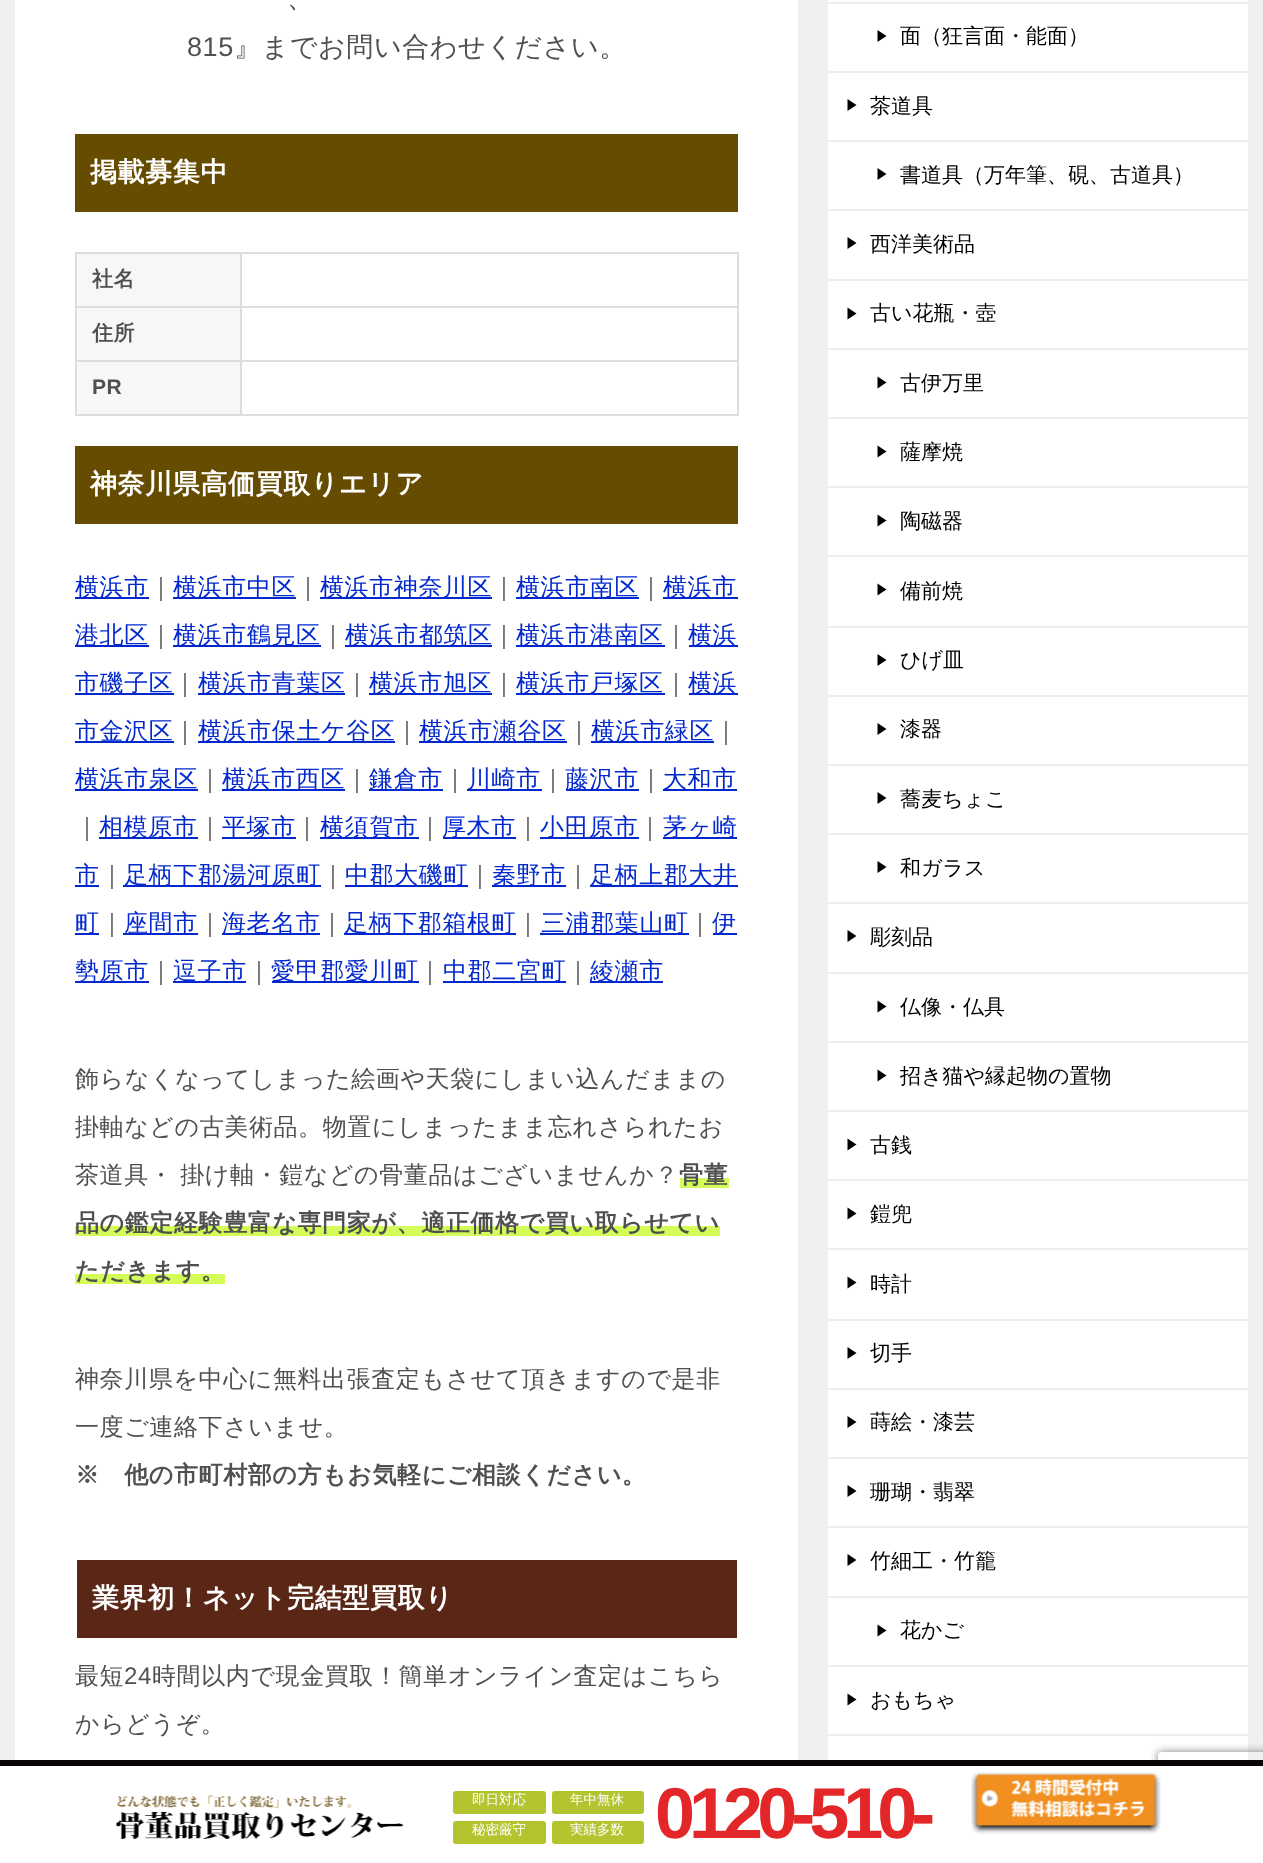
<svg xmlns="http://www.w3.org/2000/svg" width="1263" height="1863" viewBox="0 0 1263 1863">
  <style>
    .t1 { font: 500 27px WenQuanYi Zen Hei; letter-spacing: 0.6px; fill: #505050; }
    .t2 { font: 27px Liberation Sans; letter-spacing: 0.6px; fill: #505050; }
    .t3 { font: bold 27px WenQuanYi Zen Hei; letter-spacing: 0.6px; fill: #fff; }
    .t4 { font: bold 21px WenQuanYi Zen Hei; letter-spacing: 0.6px; fill: #505050; }
    .t5 { font: bold 21px Liberation Sans; letter-spacing: 0.6px; fill: #505050; }
    .t6 { font: 500 24px WenQuanYi Zen Hei; letter-spacing: 0.6px; fill: #0329ce; }
    .t7 { font: 500 24px WenQuanYi Zen Hei; letter-spacing: 0.6px; fill: #505050; }
    .t8 { font: bold 24px WenQuanYi Zen Hei; letter-spacing: 0.6px; fill: #505050; }
    .t9 { font: 24px Liberation Sans; letter-spacing: 0.6px; fill: #505050; }
    .t10 { font: 500 21px WenQuanYi Zen Hei; fill: #000; }
    .t11 { font: 500 13.5px WenQuanYi Zen Hei; fill: #fff; }
    .t12 { font: bold 72px Liberation Sans; letter-spacing: -6px; fill: #e32728; }
  </style>
  <defs>
    <clipPath id="clip1"><path d="M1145 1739H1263V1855H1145ZM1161 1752H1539C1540.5 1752 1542 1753.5 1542 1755V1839C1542 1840.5 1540.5 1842 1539 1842H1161C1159.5 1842 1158 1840.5 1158 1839V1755C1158 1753.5 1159.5 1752 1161 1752Z" clip-rule="evenodd"/></clipPath>
  </defs>
  <rect width="100%" height="100%" fill="#f0f0f0"/>
  <rect x="15" y="0" width="783" height="1760" fill="#fff"/>
  <text x="287" y="7" class="t1">、</text>
  <text x="187" y="56" class="t2">815</text>
  <text x="234" y="56" class="t1">』までお問い合わせください。</text>
  <rect x="75" y="134" width="663" height="78" fill="#664c00"/>
  <text x="90" y="181" class="t3">掲載募集中</text>
  <rect x="75" y="252" width="663" height="2" fill="#ddd"/>
  <rect x="77" y="254" width="163" height="52" fill="#f7f7f7"/>
  <rect x="737" y="252" width="2" height="164" fill="#ddd"/>
  <rect x="240" y="414" width="498" height="2" fill="#ddd"/>
  <rect x="240" y="360" width="2" height="56" fill="#ddd"/>
  <rect x="240" y="360" width="498" height="2" fill="#ddd"/>
  <rect x="240" y="306" width="2" height="56" fill="#ddd"/>
  <rect x="240" y="306" width="498" height="2" fill="#ddd"/>
  <rect x="240" y="252" width="2" height="56" fill="#ddd"/>
  <rect x="75" y="414" width="167" height="2" fill="#ddd"/>
  <rect x="75" y="360" width="2" height="56" fill="#ddd"/>
  <rect x="75" y="360" width="167" height="2" fill="#ddd"/>
  <rect x="75" y="306" width="2" height="56" fill="#ddd"/>
  <rect x="75" y="306" width="167" height="2" fill="#ddd"/>
  <rect x="75" y="252" width="2" height="56" fill="#ddd"/>
  <text x="92" y="286" class="t4">社名</text>
  <rect x="77" y="308" width="163" height="52" fill="#f7f7f7"/>
  <text x="92" y="340" class="t4">住所</text>
  <rect x="77" y="362" width="163" height="52" fill="#f7f7f7"/>
  <text x="92" y="394" class="t5">PR</text>
  <rect x="75" y="446" width="663" height="78" fill="#664c00"/>
  <text x="90" y="493" class="t3">神奈川県高価買取りエリア</text>
  <rect x="75" y="597" width="74" height="2" fill="#0329ce"/>
  <text x="75" y="595" class="t6">横浜市</text>
  <text x="149" y="595" class="t7">｜</text>
  <rect x="173" y="597" width="123" height="2" fill="#0329ce"/>
  <text x="173" y="595" class="t6">横浜市中区</text>
  <text x="296" y="595" class="t7">｜</text>
  <rect x="320" y="597" width="172" height="2" fill="#0329ce"/>
  <text x="320" y="595" class="t6">横浜市神奈川区</text>
  <text x="492" y="595" class="t7">｜</text>
  <rect x="516" y="597" width="123" height="2" fill="#0329ce"/>
  <text x="516" y="595" class="t6">横浜市南区</text>
  <text x="639" y="595" class="t7">｜</text>
  <rect x="663" y="597" width="75" height="2" fill="#0329ce"/>
  <text x="663" y="595" class="t6">横浜市</text>
  <rect x="75" y="645" width="74" height="2" fill="#0329ce"/>
  <text x="75" y="643" class="t6">港北区</text>
  <text x="149" y="643" class="t7">｜</text>
  <rect x="173" y="645" width="148" height="2" fill="#0329ce"/>
  <text x="173" y="643" class="t6">横浜市鶴見区</text>
  <text x="321" y="643" class="t7">｜</text>
  <rect x="345" y="645" width="147" height="2" fill="#0329ce"/>
  <text x="345" y="643" class="t6">横浜市都筑区</text>
  <text x="492" y="643" class="t7">｜</text>
  <rect x="516" y="645" width="149" height="2" fill="#0329ce"/>
  <text x="516" y="643" class="t6">横浜市港南区</text>
  <text x="664" y="643" class="t7">｜</text>
  <rect x="689" y="645" width="49" height="2" fill="#0329ce"/>
  <text x="688" y="643" class="t6">横浜</text>
  <rect x="75" y="693" width="99" height="2" fill="#0329ce"/>
  <text x="75" y="691" class="t6">市磯子区</text>
  <text x="173" y="691" class="t7">｜</text>
  <rect x="198" y="693" width="147" height="2" fill="#0329ce"/>
  <text x="198" y="691" class="t6">横浜市青葉区</text>
  <text x="345" y="691" class="t7">｜</text>
  <rect x="369" y="693" width="123" height="2" fill="#0329ce"/>
  <text x="369" y="691" class="t6">横浜市旭区</text>
  <text x="492" y="691" class="t7">｜</text>
  <rect x="516" y="693" width="149" height="2" fill="#0329ce"/>
  <text x="516" y="691" class="t6">横浜市戸塚区</text>
  <text x="664" y="691" class="t7">｜</text>
  <rect x="689" y="693" width="49" height="2" fill="#0329ce"/>
  <text x="688" y="691" class="t6">横浜</text>
  <rect x="75" y="741" width="99" height="2" fill="#0329ce"/>
  <text x="75" y="739" class="t6">市金沢区</text>
  <text x="173" y="739" class="t7">｜</text>
  <rect x="198" y="741" width="197" height="2" fill="#0329ce"/>
  <text x="198" y="739" class="t6">横浜市保土ケ谷区</text>
  <text x="395" y="739" class="t7">｜</text>
  <rect x="419" y="741" width="148" height="2" fill="#0329ce"/>
  <text x="419" y="739" class="t6">横浜市瀬谷区</text>
  <text x="567" y="739" class="t7">｜</text>
  <rect x="591" y="741" width="123" height="2" fill="#0329ce"/>
  <text x="591" y="739" class="t6">横浜市緑区</text>
  <text x="714" y="739" class="t7">｜</text>
  <rect x="75" y="789" width="123" height="2" fill="#0329ce"/>
  <text x="75" y="787" class="t6">横浜市泉区</text>
  <text x="198" y="787" class="t7">｜</text>
  <rect x="222" y="789" width="123" height="2" fill="#0329ce"/>
  <text x="222" y="787" class="t6">横浜市西区</text>
  <text x="345" y="787" class="t7">｜</text>
  <rect x="369" y="789" width="74" height="2" fill="#0329ce"/>
  <text x="369" y="787" class="t6">鎌倉市</text>
  <text x="443" y="787" class="t7">｜</text>
  <rect x="467" y="789" width="75" height="2" fill="#0329ce"/>
  <text x="467" y="787" class="t6">川崎市</text>
  <text x="541" y="787" class="t7">｜</text>
  <rect x="566" y="789" width="73" height="2" fill="#0329ce"/>
  <text x="565" y="787" class="t6">藤沢市</text>
  <text x="639" y="787" class="t7">｜</text>
  <rect x="663" y="789" width="74" height="2" fill="#0329ce"/>
  <text x="663" y="787" class="t6">大和市</text>
  <text x="75" y="835" class="t7">｜</text>
  <rect x="99" y="837" width="99" height="2" fill="#0329ce"/>
  <text x="99" y="835" class="t6">相模原市</text>
  <text x="198" y="835" class="t7">｜</text>
  <rect x="222" y="837" width="74" height="2" fill="#0329ce"/>
  <text x="222" y="835" class="t6">平塚市</text>
  <text x="295" y="835" class="t7">｜</text>
  <rect x="320" y="837" width="99" height="2" fill="#0329ce"/>
  <text x="320" y="835" class="t6">横須賀市</text>
  <text x="418" y="835" class="t7">｜</text>
  <rect x="443" y="837" width="73" height="2" fill="#0329ce"/>
  <text x="442" y="835" class="t6">厚木市</text>
  <text x="516" y="835" class="t7">｜</text>
  <rect x="540" y="837" width="99" height="2" fill="#0329ce"/>
  <text x="540" y="835" class="t6">小田原市</text>
  <text x="638" y="835" class="t7">｜</text>
  <rect x="663" y="837" width="74" height="2" fill="#0329ce"/>
  <text x="663" y="835" class="t6">茅ヶ崎</text>
  <rect x="75" y="885" width="24" height="2" fill="#0329ce"/>
  <text x="75" y="883" class="t6">市</text>
  <text x="100" y="883" class="t7">｜</text>
  <rect x="123" y="885" width="198" height="2" fill="#0329ce"/>
  <text x="124" y="883" class="t6">足柄下郡湯河原町</text>
  <text x="321" y="883" class="t7">｜</text>
  <rect x="345" y="885" width="123" height="2" fill="#0329ce"/>
  <text x="345" y="883" class="t6">中郡大磯町</text>
  <text x="468" y="883" class="t7">｜</text>
  <rect x="492" y="885" width="74" height="2" fill="#0329ce"/>
  <text x="492" y="883" class="t6">秦野市</text>
  <text x="566" y="883" class="t7">｜</text>
  <rect x="590" y="885" width="148" height="2" fill="#0329ce"/>
  <text x="590" y="883" class="t6">足柄上郡大井</text>
  <rect x="75" y="933" width="24" height="2" fill="#0329ce"/>
  <text x="75" y="931" class="t6">町</text>
  <text x="100" y="931" class="t7">｜</text>
  <rect x="123" y="933" width="75" height="2" fill="#0329ce"/>
  <text x="124" y="931" class="t6">座間市</text>
  <text x="198" y="931" class="t7">｜</text>
  <rect x="222" y="933" width="98" height="2" fill="#0329ce"/>
  <text x="222" y="931" class="t6">海老名市</text>
  <text x="320" y="931" class="t7">｜</text>
  <rect x="344" y="933" width="172" height="2" fill="#0329ce"/>
  <text x="344" y="931" class="t6">足柄下郡箱根町</text>
  <text x="516" y="931" class="t7">｜</text>
  <rect x="540" y="933" width="149" height="2" fill="#0329ce"/>
  <text x="541" y="931" class="t6">三浦郡葉山町</text>
  <text x="688" y="931" class="t7">｜</text>
  <rect x="713" y="933" width="24" height="2" fill="#0329ce"/>
  <text x="712" y="931" class="t6">伊</text>
  <rect x="75" y="981" width="74" height="2" fill="#0329ce"/>
  <text x="75" y="979" class="t6">勢原市</text>
  <text x="149" y="979" class="t7">｜</text>
  <rect x="173" y="981" width="73" height="2" fill="#0329ce"/>
  <text x="173" y="979" class="t6">逗子市</text>
  <text x="247" y="979" class="t7">｜</text>
  <rect x="272" y="981" width="147" height="2" fill="#0329ce"/>
  <text x="271" y="979" class="t6">愛甲郡愛川町</text>
  <text x="418" y="979" class="t7">｜</text>
  <rect x="443" y="981" width="123" height="2" fill="#0329ce"/>
  <text x="443" y="979" class="t6">中郡二宮町</text>
  <text x="566" y="979" class="t7">｜</text>
  <rect x="590" y="981" width="73" height="2" fill="#0329ce"/>
  <text x="590" y="979" class="t6">綾瀬市</text>
  <text x="75" y="1087" class="t7">飾らなくなってしまった絵画や天袋にしまい込んだままの</text>
  <text x="75" y="1135" class="t7">掛軸などの古美術品。物置にしまったまま忘れさられたお</text>
  <text x="75" y="1183" word-spacing="-1" class="t7">茶道具・ 掛け軸・鎧などの骨董品はございませんか？</text>
  <rect x="680" y="1178" width="49" height="10" fill="#d3fc58"/>
  <text x="679" y="1183" class="t8">骨董</text>
  <rect x="75" y="1226" width="645" height="10" fill="#d3fc58"/>
  <text x="75" y="1231" class="t8">品の鑑定経験豊富な専門家が、適正価格で買い取らせてい</text>
  <rect x="75" y="1274" width="150" height="10" fill="#d3fc58"/>
  <text x="75" y="1279" class="t8">ただきます。</text>
  <text x="75" y="1387" class="t7">神奈川県を中心に無料出張査定もさせて頂きますので是非</text>
  <text x="75" y="1435" class="t7">一度ご連絡下さいませ。</text>
  <text x="75" y="1483" class="t8">※　他の市町村部の方もお気軽にご相談ください。</text>
  <rect x="77" y="1560" width="660" height="78" fill="#5a2716"/>
  <text x="92" y="1607" class="t3">業界初！ネット完結型買取り</text>
  <text x="75" y="1684" class="t7">最短</text>
  <text x="124" y="1684" class="t9">24</text>
  <text x="152" y="1684" class="t7">時間以内で現金買取！簡単オンライン査定はこちら</text>
  <text x="75" y="1732" class="t7">からどうぞ。</text>
  <rect x="828" y="0" width="420" height="1760" fill="#fff"/>
  <rect x="828" y="71" width="420" height="2" fill="#eee"/>
  <rect x="828" y="2" width="420" height="2" fill="#eee"/>
  <path d="M877.5 42V30L886.5 36Z" fill="#000"/>
  <text x="900" y="43" class="t10">面（狂言面・能面）</text>
  <rect x="828" y="209" width="420" height="2" fill="#eee"/>
  <path d="M847.5 111V99L856.5 105Z" fill="#000"/>
  <text x="870" y="113" class="t10">茶道具</text>
  <rect x="828" y="140" width="420" height="2" fill="#eee"/>
  <path d="M877.5 180V168L886.5 174Z" fill="#000"/>
  <text x="900" y="182" class="t10">書道具（万年筆、硯、古道具）</text>
  <rect x="828" y="279" width="420" height="2" fill="#eee"/>
  <path d="M847.5 249V237L856.5 243Z" fill="#000"/>
  <text x="870" y="251" class="t10">西洋美術品</text>
  <rect x="828" y="902" width="420" height="2" fill="#eee"/>
  <path d="M847.5 319.5V307.5L856.5 313.5Z" fill="#000"/>
  <text x="870" y="320" class="t10">古い花瓶・壺</text>
  <rect x="828" y="348" width="420" height="2" fill="#eee"/>
  <rect x="828" y="417" width="420" height="2" fill="#eee"/>
  <path d="M877.5 388.5V376.5L886.5 382.5Z" fill="#000"/>
  <text x="900" y="390" class="t10">古伊万里</text>
  <rect x="828" y="486" width="420" height="2" fill="#eee"/>
  <path d="M877.5 457.5V445.5L886.5 451.5Z" fill="#000"/>
  <text x="900" y="459" class="t10">薩摩焼</text>
  <rect x="828" y="555" width="420" height="2" fill="#eee"/>
  <path d="M877.5 526.5V514.5L886.5 520.5Z" fill="#000"/>
  <text x="900" y="528" class="t10">陶磁器</text>
  <rect x="828" y="626" width="420" height="2" fill="#eee"/>
  <path d="M877.5 595.5V583.5L886.5 589.5Z" fill="#000"/>
  <text x="900" y="598" class="t10">備前焼</text>
  <rect x="828" y="695" width="420" height="2" fill="#eee"/>
  <path d="M877.5 666V654L886.5 660Z" fill="#000"/>
  <text x="900" y="667" class="t10">ひげ皿</text>
  <rect x="828" y="764" width="420" height="2" fill="#eee"/>
  <path d="M877.5 735V723L886.5 729Z" fill="#000"/>
  <text x="900" y="736" class="t10">漆器</text>
  <rect x="828" y="833" width="420" height="2" fill="#eee"/>
  <path d="M877.5 804V792L886.5 798Z" fill="#000"/>
  <text x="900" y="806" class="t10">蕎麦ちょこ</text>
  <path d="M877.5 873V861L886.5 867Z" fill="#000"/>
  <text x="900" y="875" class="t10">和ガラス</text>
  <rect x="828" y="1110" width="420" height="2" fill="#eee"/>
  <path d="M847.5 942V930L856.5 936Z" fill="#000"/>
  <text x="870" y="944" class="t10">彫刻品</text>
  <rect x="828" y="972" width="420" height="2" fill="#eee"/>
  <rect x="828" y="1041" width="420" height="2" fill="#eee"/>
  <path d="M877.5 1012.5V1000.5L886.5 1006.5Z" fill="#000"/>
  <text x="900" y="1014" class="t10">仏像・仏具</text>
  <path d="M877.5 1081.5V1069.5L886.5 1075.5Z" fill="#000"/>
  <text x="900" y="1083" class="t10">招き猫や縁起物の置物</text>
  <rect x="828" y="1179" width="420" height="2" fill="#eee"/>
  <path d="M847.5 1150.5V1138.5L856.5 1144.5Z" fill="#000"/>
  <text x="870" y="1152" class="t10">古銭</text>
  <rect x="828" y="1248" width="420" height="2" fill="#eee"/>
  <path d="M847.5 1219.5V1207.5L856.5 1213.5Z" fill="#000"/>
  <text x="870" y="1221" class="t10">鎧兜</text>
  <rect x="828" y="1319" width="420" height="2" fill="#eee"/>
  <path d="M847.5 1288.5V1276.5L856.5 1282.5Z" fill="#000"/>
  <text x="870" y="1291" class="t10">時計</text>
  <rect x="828" y="1388" width="420" height="2" fill="#eee"/>
  <path d="M847.5 1359V1347L856.5 1353Z" fill="#000"/>
  <text x="870" y="1360" class="t10">切手</text>
  <rect x="828" y="1457" width="420" height="2" fill="#eee"/>
  <path d="M847.5 1428V1416L856.5 1422Z" fill="#000"/>
  <text x="870" y="1429" class="t10">蒔絵・漆芸</text>
  <rect x="828" y="1526" width="420" height="2" fill="#eee"/>
  <path d="M847.5 1497V1485L856.5 1491Z" fill="#000"/>
  <text x="870" y="1499" class="t10">珊瑚・翡翠</text>
  <rect x="828" y="1665" width="420" height="2" fill="#eee"/>
  <path d="M847.5 1566V1554L856.5 1560Z" fill="#000"/>
  <text x="870" y="1568" class="t10">竹細工・竹籠</text>
  <rect x="828" y="1596" width="420" height="2" fill="#eee"/>
  <path d="M877.5 1636.5V1624.5L886.5 1630.5Z" fill="#000"/>
  <text x="900" y="1637" class="t10">花かご</text>
  <path d="M847.5 1705.5V1693.5L856.5 1699.5Z" fill="#000"/>
  <text x="870" y="1707" class="t10">おもちゃ</text>
  <rect x="828" y="1734" width="420" height="2" fill="#eee"/>
  <g clip-path="url(#clip1)">
    <rect x="1158" y="1752" width="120" height="90" rx="3" fill="#808080" filter="blur(4px)"/>
  </g>
  <rect x="0" y="1766" width="1263" height="97" fill="#fff"/>
  <rect x="0" y="1760" width="1263" height="6" fill="#080404"/>
  <image x="116" y="1795" width="288" height="44" href="images/1.png"/>
  <rect x="453" y="1791" width="93" height="23" rx="3" fill="#b3c42e"/>
  <text x="472" y="1804" class="t11">即日対応</text>
  <rect x="552" y="1791" width="92" height="23" rx="3" fill="#b3c42e"/>
  <text x="570" y="1804" class="t11">年中無休</text>
  <rect x="453" y="1821" width="93" height="23" rx="3" fill="#b3c42e"/>
  <text x="472" y="1834" class="t11">秘密厳守</text>
  <rect x="552" y="1821" width="92" height="23" rx="3" fill="#b3c42e"/>
  <text x="570" y="1834" class="t11">実績多数</text>
  <text x="655" y="1838" class="t12">0120-510-</text>
  <image x="971" y="1772" width="190" height="62" href="images/2.png"/>
</svg>
